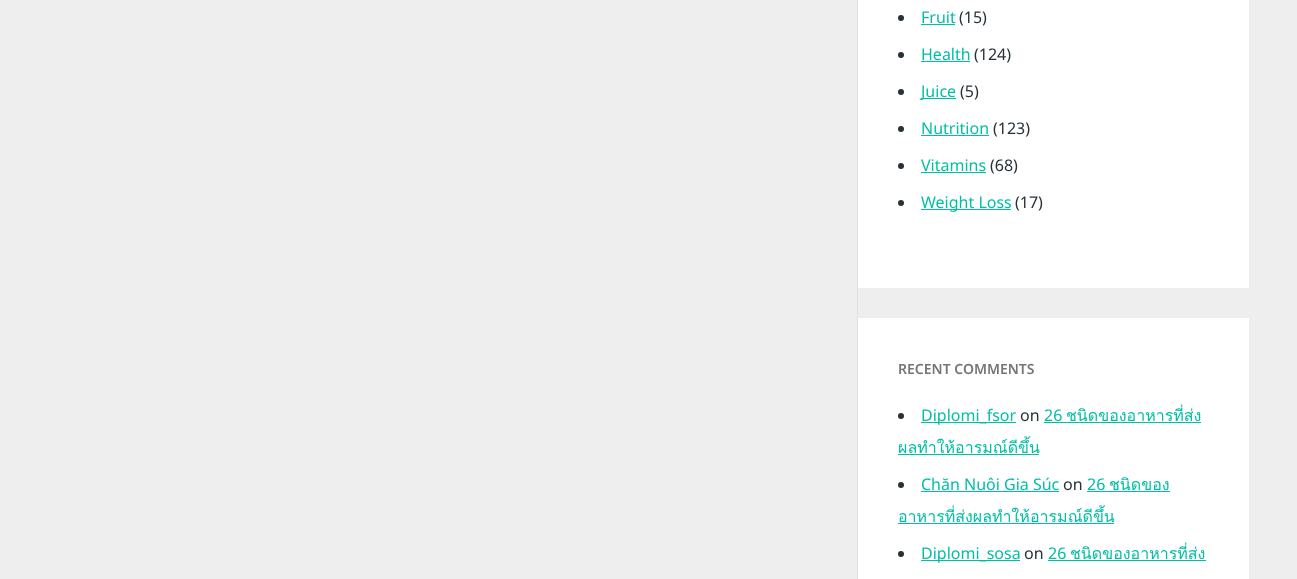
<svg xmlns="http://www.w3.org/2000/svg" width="1297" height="579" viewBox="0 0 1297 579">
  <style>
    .t1 { font: 16px Noto Sans; fill: #00bfa5; }
    .t2 { font: 16px Noto Sans; fill: #263238; }
    .t3 { font: 600 14px Noto Sans; fill: #757575; }
    .t4 { font: 16px Loma; fill: #00bfa5; }
  </style>
  <rect width="100%" height="100%" fill="#eee"/>
  <rect x="857" y="0" width="1" height="579" fill="#e0e0e0"/>
  <rect x="858" y="0" width="391" height="288" fill="#fff"/>
  <circle cx="901" cy="18" r="3" fill="#263238"/>
  <text x="921" y="23" class="t1">Fruit</text>
  <rect x="921" y="24" width="34" height="1" fill="#00bfa5"/>
  <text x="959" y="23" class="t2">(15)</text>
  <circle cx="901" cy="55" r="3" fill="#263238"/>
  <text x="921" y="60" class="t1">Health</text>
  <rect x="921" y="61" width="49" height="1" fill="#00bfa5"/>
  <text x="974" y="60" class="t2">(124)</text>
  <circle cx="901" cy="92" r="3" fill="#263238"/>
  <rect x="921" y="98" width="35" height="1" fill="#00bfa5"/>
  <text x="921" y="97" class="t1">Juice</text>
  <text x="960" y="97" class="t2">(5)</text>
  <circle cx="901" cy="129" r="3" fill="#263238"/>
  <text x="921" y="134" class="t1">Nutrition</text>
  <rect x="921" y="135" width="68" height="1" fill="#00bfa5"/>
  <text x="993" y="134" class="t2">(123)</text>
  <circle cx="901" cy="166" r="3" fill="#263238"/>
  <text x="921" y="171" class="t1">Vitamins</text>
  <rect x="921" y="172" width="65" height="1" fill="#00bfa5"/>
  <text x="990" y="171" class="t2">(68)</text>
  <circle cx="901" cy="203" r="3" fill="#263238"/>
  <rect x="921" y="209" width="90" height="1" fill="#00bfa5"/>
  <text x="921" y="208" class="t1">Weight Loss</text>
  <text x="1015" y="208" class="t2">(17)</text>
  <rect x="858" y="318" width="391" height="261" fill="#fff"/>
  <text x="898" y="374" class="t3">RECENT COMMENTS</text>
  <circle cx="901" cy="416" r="3" fill="#263238"/>
  <rect x="921" y="422" width="95" height="1" fill="#00bfa5"/>
  <text x="921" y="421" class="t1">Diplomi_fsor</text>
  <text x="1020" y="421" class="t2">on</text>
  <text x="1044" y="421" class="t1">26</text>
  <rect x="1044" y="422" width="157" height="1" fill="#00bfa5"/>
  <text x="1066" y="421" class="t4">ชนิดของอาหารที่ส่ง</text>
  <text x="898" y="453" class="t4">ผลทำให้อารมณ์ดีขึ้น</text>
  <rect x="898" y="454" width="141" height="1" fill="#00bfa5"/>
  <circle cx="901" cy="485" r="3" fill="#263238"/>
  <text x="921" y="490" class="t1">Chăn Nuôi Gia Súc</text>
  <rect x="921" y="491" width="138" height="1" fill="#00bfa5"/>
  <text x="1063" y="490" class="t2">on</text>
  <text x="1087" y="490" class="t1">26</text>
  <rect x="1087" y="491" width="83" height="1" fill="#00bfa5"/>
  <text x="1109" y="490" class="t4">ชนิดของ</text>
  <text x="898" y="522" class="t4">อาหารที่ส่งผลทำให้อารมณ์ดีขึ้น</text>
  <rect x="898" y="523" width="216" height="1" fill="#00bfa5"/>
  <circle cx="901" cy="554" r="3" fill="#263238"/>
  <rect x="921" y="560" width="99" height="1" fill="#00bfa5"/>
  <text x="921" y="559" class="t1">Diplomi_sosa</text>
  <text x="1024" y="559" class="t2">on</text>
  <text x="1048" y="559" class="t1">26</text>
  <rect x="1048" y="560" width="158" height="1" fill="#00bfa5"/>
  <text x="1070" y="559" class="t4">ชนิดของอาหารที่ส่ง</text>
</svg>
